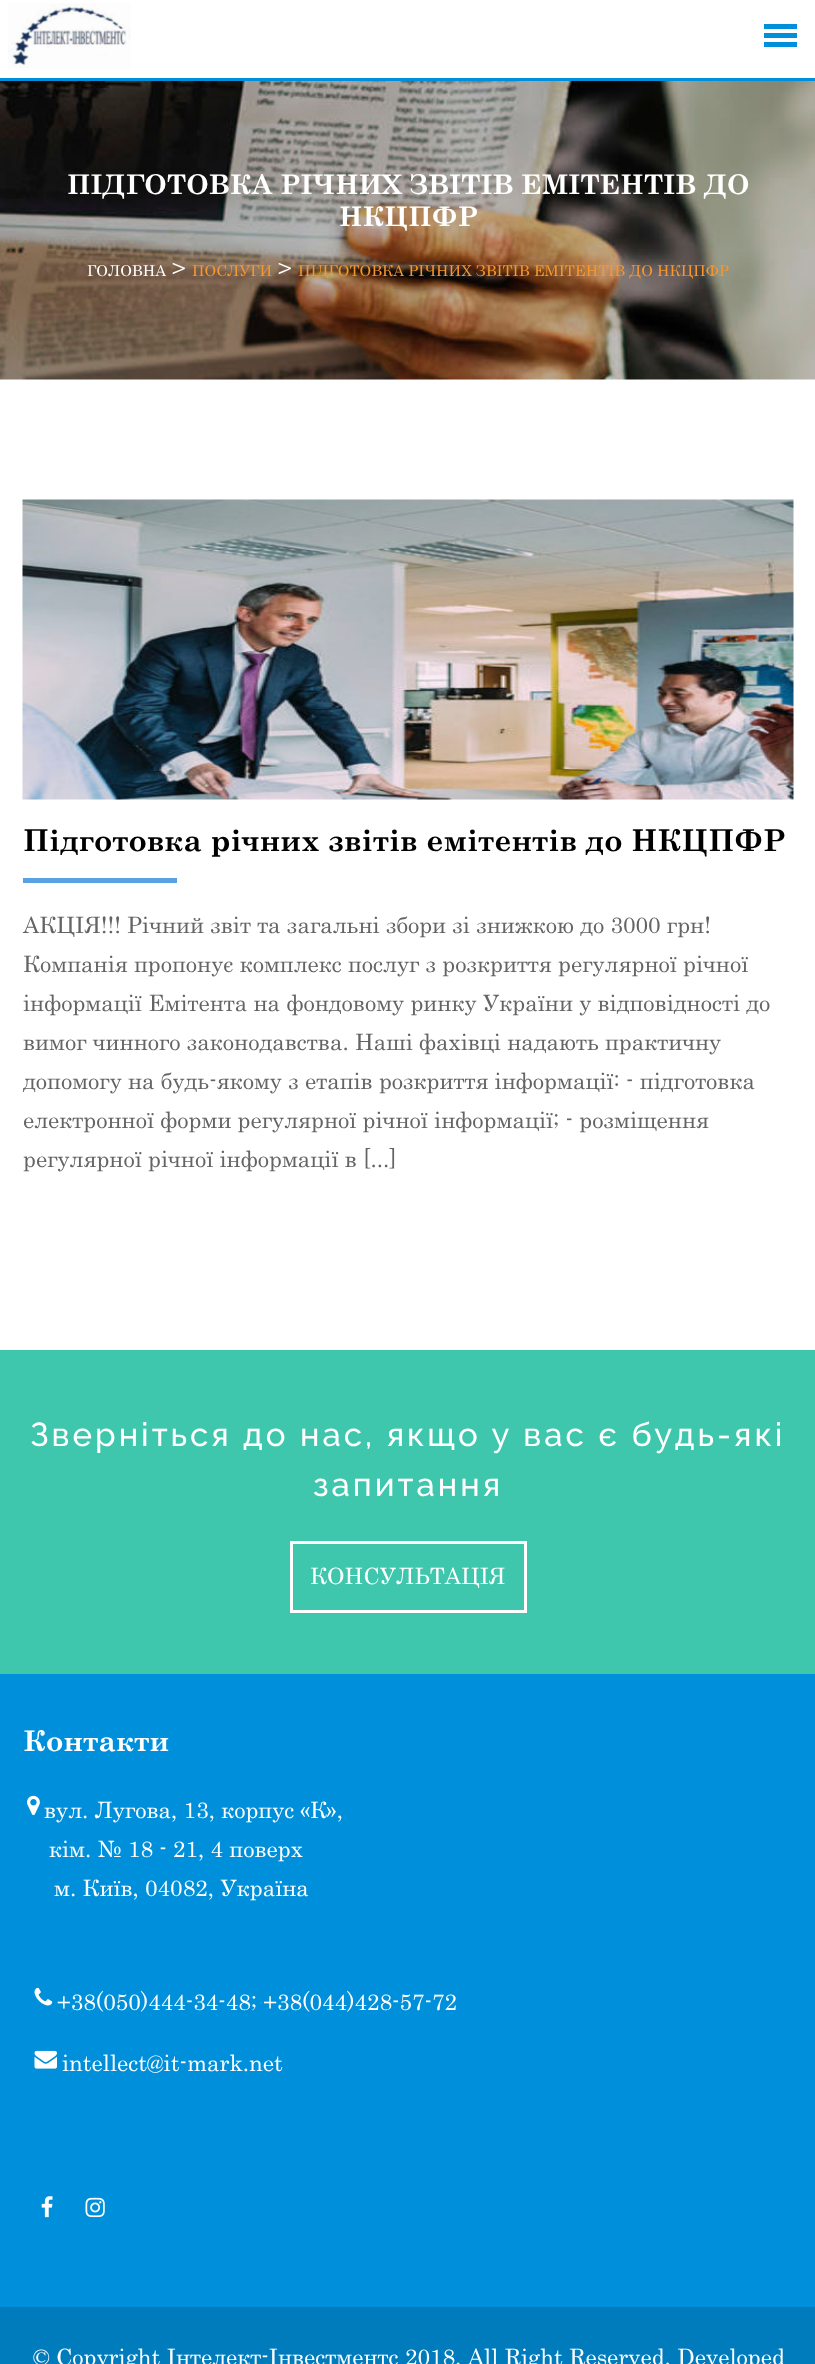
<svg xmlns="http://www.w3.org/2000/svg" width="815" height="2364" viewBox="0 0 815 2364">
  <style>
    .t1 { font: bold 27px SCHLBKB; fill: #fff; }
    .t2 { font: 15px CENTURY; fill: #fff; }
    .t3 { font: 22.5px CENTURY; fill: #fff; }
    .t4 { font: 15px CENTURY; fill: #f7972f; }
    .t5 { font: bold 30px SCHLBKB; fill: #000; }
    .t6 { font: 22.5px CENTURY; fill: #646464; }
    .t7 { font: 500 33px Raleway; letter-spacing: 3px; fill: #fff; }
    .t8 { font: bold 28.5px SCHLBKB; fill: #fff; }
  </style>
  <defs>
    <clipPath id="clip1"><rect x="23" y="822" width="771" height="356"/></clipPath>
  </defs>
  <rect width="100%" height="100%" fill="#fff"/>
  <rect x="0" y="78" width="815" height="3" fill="#0090db"/>
  <image x="8" y="3" width="123" height="66" href="images/1.png"/>
  <rect x="764" y="24" width="33" height="5" fill="#0090db"/>
  <rect x="764" y="33" width="33" height="5" fill="#0090db"/>
  <rect x="764" y="42" width="33" height="5" fill="#0090db"/>
  <image x="0" y="81" width="815" height="299" href="images/2.png"/>
  <text x="67" y="194" class="t1">ПІДГОТОВКА РІЧНИХ ЗВІТІВ ЕМІТЕНТІВ ДО</text>
  <text x="339" y="226" class="t1">НКЦПФР</text>
  <text x="87" y="276" class="t2">ГОЛОВНА</text>
  <text x="172" y="276" class="t3">&gt;</text>
  <text x="192" y="276" class="t4">ПОСЛУГИ</text>
  <text x="278" y="276" class="t3">&gt;</text>
  <text x="298" y="276" class="t4">ПІДГОТОВКА РІЧНИХ ЗВІТІВ ЕМІТЕНТІВ ДО НКЦПФР</text>
  <image x="22" y="499" width="772" height="301" href="images/3.png"/>
  <text x="23" y="851" class="t5">Підготовка річних звітів емітентів до НКЦПФР</text>
  <rect x="23" y="878" width="154" height="5" fill="#5aa1e3"/>
  <text x="23" y="933" class="t6">АКЦІЯ!!! Річний звіт та загальні збори зі знижкою до 3000 грн!</text>
  <text x="23" y="972" class="t6">Компанія пропонує комплекс послуг з розкриття регулярної річної</text>
  <text x="23" y="1011" class="t6">інформації Емітента на фондовому ринку України у відповідності до</text>
  <text x="23" y="1050" class="t6">вимог чинного законодавства. Наші фахівці надають практичну</text>
  <g clip-path="url(#clip1)">
    <text x="23" y="1089" class="t6">допомогу на будь-якому з етапів розкриття інформації: - підготовка</text>
  </g>
  <text x="23" y="1128" class="t6">електронної форми регулярної річної інформації; - розміщення</text>
  <text x="23" y="1167" class="t6">регулярної річної інформації в [...]</text>
  <rect x="0" y="1350" width="815" height="324" fill="#3ec7ad"/>
  <text x="30" y="1446" word-spacing="0.25" class="t7">Зверніться до нас, якщо у вас є будь-які</text>
  <text x="313" y="1496" class="t7">запитання</text>
  <rect x="291.5" y="1542.5" width="234" height="69" fill="none" stroke="#fff" stroke-width="3"/>
  <text x="310" y="1584" class="t3">КОНСУЛЬТАЦІЯ</text>
  <rect x="0" y="1674" width="815" height="633" fill="#0090db"/>
  <text x="23" y="1751" class="t8">Контакти</text>
  <image x="27" y="1795" width="13" height="21" href="images/4.png"/>
  <text x="44" y="1818" class="t3">вул. Лугова, 13, корпус «К»,</text>
  <text x="49" y="1857" class="t3">кім. № 18 - 21, 4 поверх</text>
  <text x="54" y="1896" class="t3">м. Київ, 04082, Україна</text>
  <image x="34" y="1987" width="19" height="19" href="images/5.png"/>
  <text x="57" y="2010" class="t3">+38(050)444-34-48; +38(044)428-57-72</text>
  <image x="34" y="2050" width="23" height="19" href="images/6.png"/>
  <text x="62" y="2071" class="t3">intellect@it-mark.net</text>
  <image x="41" y="2196" width="12" height="22" href="images/7.png"/>
  <image x="85" y="2197" width="20" height="21" href="images/8.png"/>
  <rect x="0" y="2307" width="815" height="57" fill="#007cbc"/>
  <text x="33" y="2365" word-spacing="0.25" class="t3">© Copyright Інтелект-Інвестментс 2018. All Right Reserved. Developed</text>
</svg>
